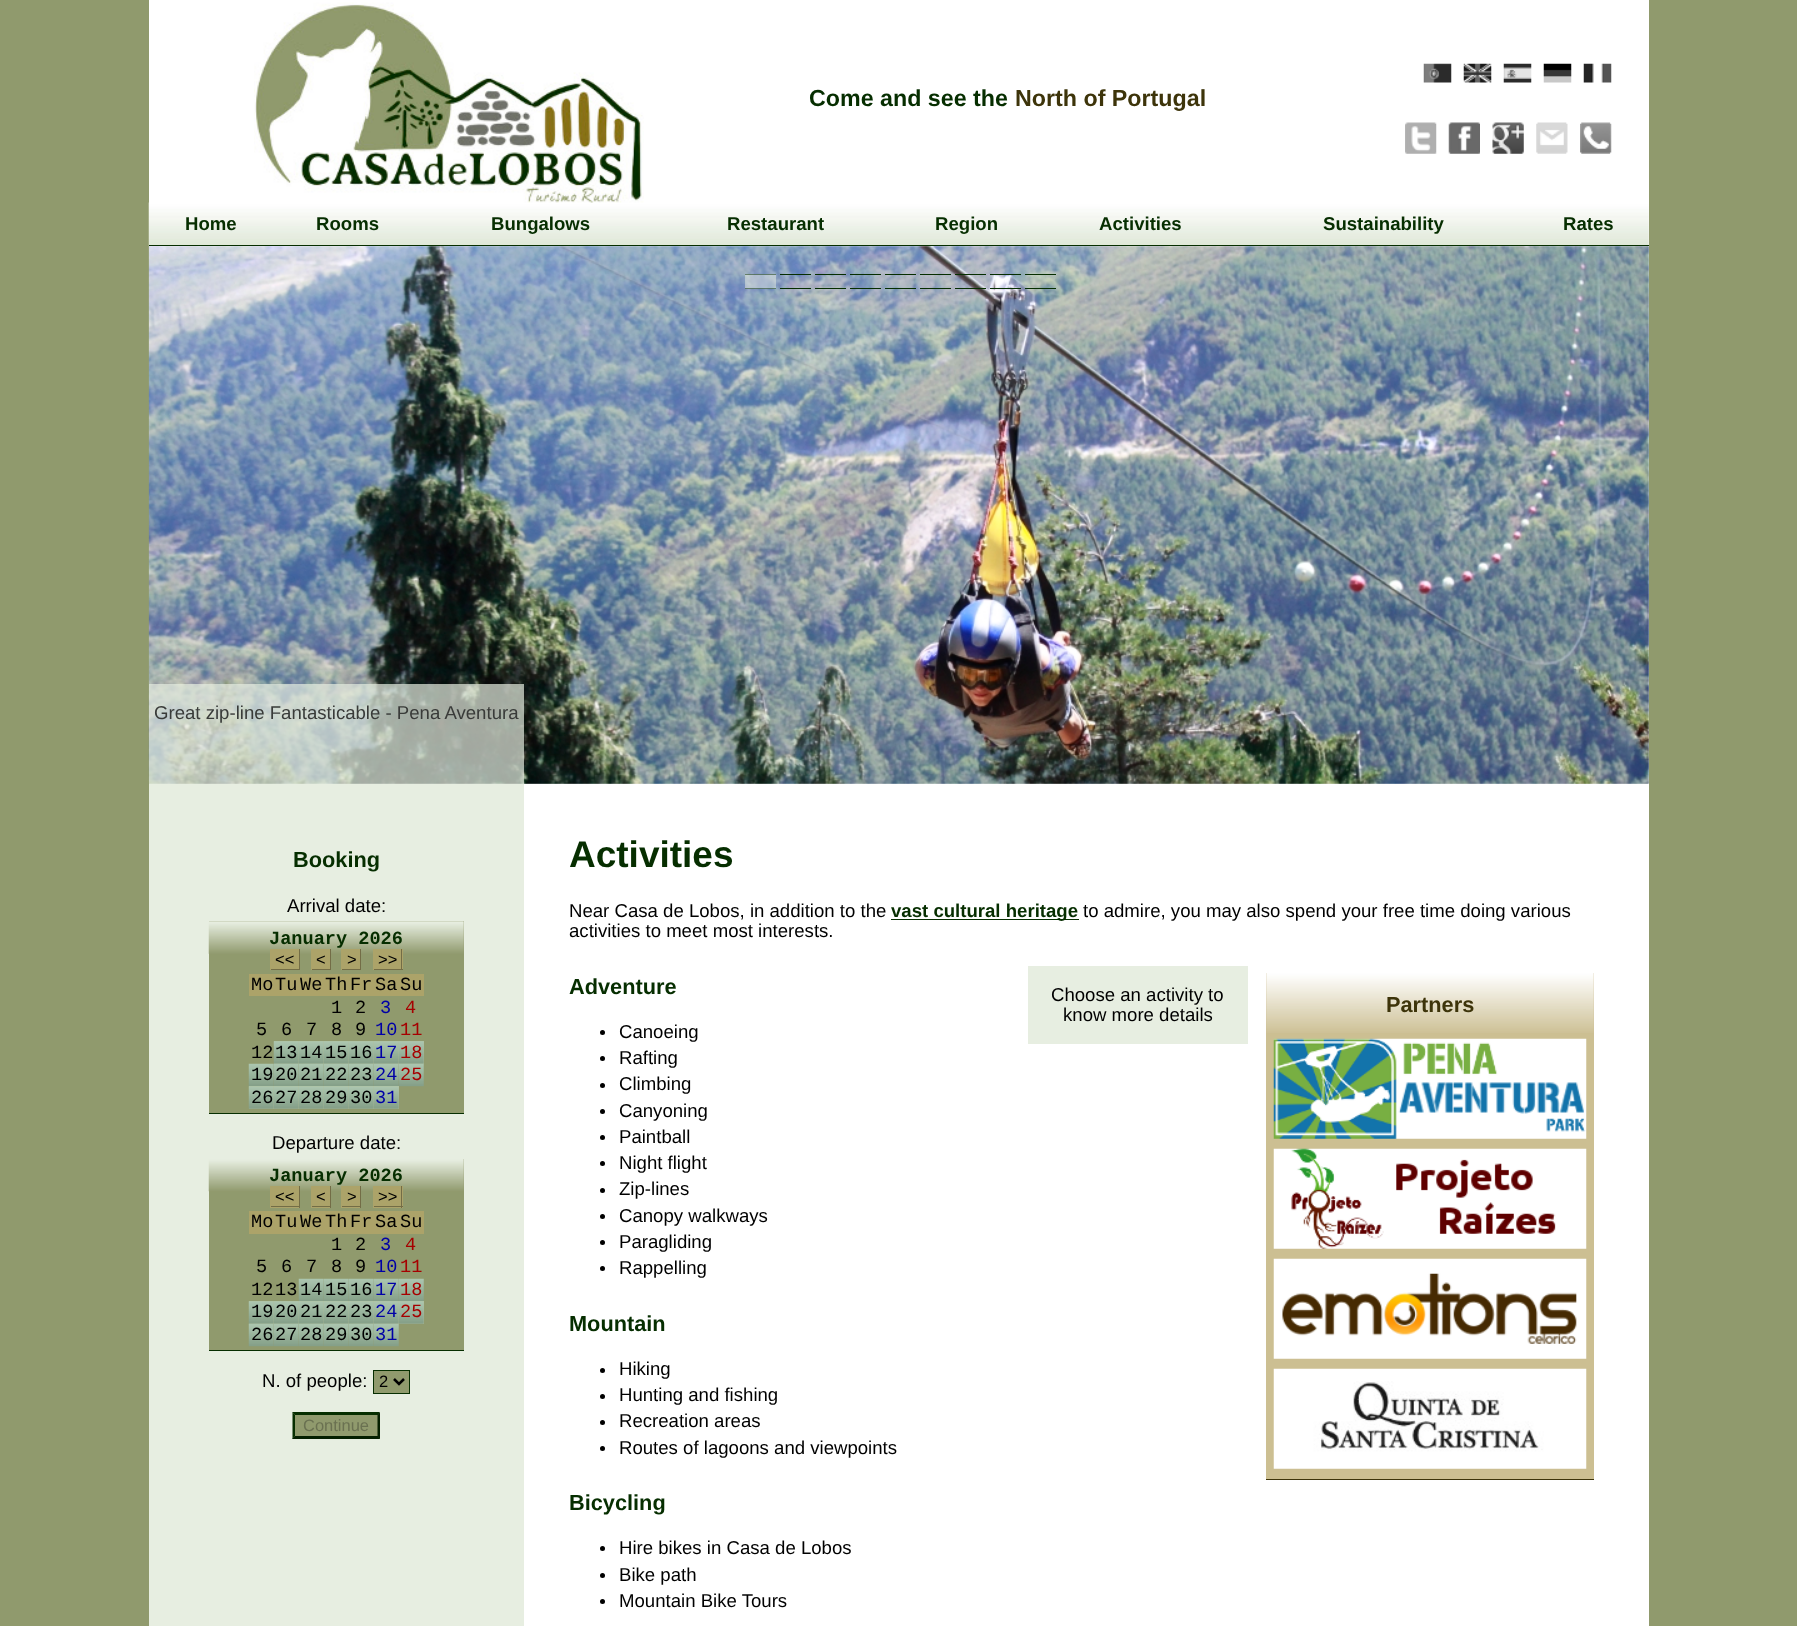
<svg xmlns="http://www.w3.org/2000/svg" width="1797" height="1626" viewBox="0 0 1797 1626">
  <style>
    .t1 { font: bold 23.25px Liberation Sans; fill: #062e00; }
    .t2 { font: bold 23.25px Liberation Sans; fill: #3d340a; }
    .t3 { font: bold 18.6px Liberation Sans; fill: #062e00; }
    .t4 { font: 18.6px Liberation Sans; fill: #393b39; }
    .t5 { font: bold 21.75px Liberation Sans; fill: #062e00; }
    .t6 { font: 18.6px Liberation Sans; fill: #000; }
    .t7 { font: bold 18.6px Liberation Mono; fill: #062e00; }
    .t8 { font: 16.5px Liberation Sans; fill: #000; }
    .t9 { font: 18.6px Liberation Mono; fill: #000; }
    .t10 { font: 18.6px Liberation Mono; fill: #0000a6; }
    .t11 { font: 18.6px Liberation Mono; fill: #a60000; }
    .t12 { font: 16.5px Liberation Sans; fill: #6a7151; }
    .t13 { font: bold 37px Liberation Sans; fill: #062e00; }
    .t14 { font: bold 21.75px Liberation Sans; fill: #3d340a; }
  </style>
  <rect width="100%" height="100%" fill="#909a6d"/>
  <rect x="149" y="0" width="1500" height="245" fill="#fff"/>
  <image x="148" y="202" width="1501" height="45" href="images/12.png"/>
  <image x="254" y="2" width="390" height="201" href="images/1.png"/>
  <text x="809" y="106" class="t1">Come and see the</text>
  <text x="1015" y="106" class="t2">North of Portugal</text>
  <image x="1423" y="63" width="29" height="20" href="images/2.png"/>
  <image x="1463" y="63" width="29" height="20" href="images/3.png"/>
  <image x="1503" y="63" width="29" height="20" href="images/4.png"/>
  <image x="1543" y="63" width="29" height="20" href="images/5.png"/>
  <image x="1583" y="63" width="29" height="20" href="images/6.png"/>
  <image x="1405" y="122" width="32" height="32" href="images/7.png"/>
  <image x="1448" y="122" width="32" height="32" href="images/8.png"/>
  <image x="1492" y="122" width="32" height="32" href="images/9.png"/>
  <image x="1536" y="122" width="32" height="32" href="images/10.png"/>
  <image x="1580" y="122" width="32" height="32" href="images/11.png"/>
  <rect x="149" y="245" width="1500" height="1" fill="#062e00"/>
  <text x="185" y="230" class="t3">Home</text>
  <text x="316" y="230" class="t3">Rooms</text>
  <text x="491" y="230" class="t3">Bungalows</text>
  <text x="727" y="230" class="t3">Restaurant</text>
  <text x="935" y="230" class="t3">Region</text>
  <text x="1099" y="230" class="t3">Activities</text>
  <text x="1323" y="230" class="t3">Sustainability</text>
  <text x="1563" y="230" class="t3">Rates</text>
  <rect x="149" y="246" width="1500" height="1380" fill="#fff"/>
  <image x="148" y="246" width="1501" height="538" href="images/13.png"/>
  <image x="148" y="246" width="1501" height="538" href="images/14.png"/>
  <rect x="745" y="274" width="31" height="15" fill="#e7eee180"/>
  <rect x="745" y="274" width="31" height="1" fill="#062e0080"/>
  <rect x="745" y="288" width="31" height="1" fill="#062e0080"/>
  <rect x="780" y="274" width="31" height="1" fill="#062e00"/>
  <rect x="780" y="288" width="31" height="1" fill="#062e00"/>
  <rect x="815" y="274" width="31" height="1" fill="#062e00"/>
  <rect x="815" y="288" width="31" height="1" fill="#062e00"/>
  <rect x="850" y="274" width="31" height="1" fill="#062e00"/>
  <rect x="850" y="288" width="31" height="1" fill="#062e00"/>
  <rect x="885" y="274" width="31" height="1" fill="#062e00"/>
  <rect x="885" y="288" width="31" height="1" fill="#062e00"/>
  <rect x="920" y="274" width="31" height="1" fill="#062e00"/>
  <rect x="920" y="288" width="31" height="1" fill="#062e00"/>
  <rect x="955" y="274" width="31" height="1" fill="#062e00"/>
  <rect x="955" y="288" width="31" height="1" fill="#062e00"/>
  <rect x="990" y="274" width="31" height="1" fill="#062e00"/>
  <rect x="990" y="288" width="31" height="1" fill="#062e00"/>
  <rect x="1025" y="274" width="31" height="1" fill="#062e00"/>
  <rect x="1025" y="288" width="31" height="1" fill="#062e00"/>
  <rect x="149" y="684" width="375" height="100" fill="#e7eee1b3"/>
  <text x="154" y="719" class="t4">Great zip-line Fantasticable - Pena Aventura</text>
  <rect x="149" y="784" width="375" height="842" fill="#e7eee1"/>
  <text x="293" y="867" class="t5">Booking</text>
  <text x="287" y="912" class="t6">Arrival date:</text>
  <rect x="209" y="921" width="255" height="192" fill="#909a6d"/>
  <rect x="209" y="1113" width="255" height="1" fill="#062e00"/>
  <image x="208" y="921" width="256" height="33" href="images/15.png"/>
  <text x="269" y="944" class="t7">January 2026</text>
  <rect x="271" y="949" width="28" height="20" fill="#aca369"/>
  <rect x="299" y="949" width="1" height="21" fill="#736d46"/>
  <rect x="270" y="969" width="30" height="1" fill="#736d46"/>
  <rect x="270" y="949" width="1" height="21" fill="#aca369"/>
  <text x="275" y="965" class="t8">&lt;&lt;</text>
  <rect x="312" y="949" width="18" height="20" fill="#aca369"/>
  <rect x="330" y="949" width="1" height="21" fill="#736d46"/>
  <rect x="311" y="969" width="20" height="1" fill="#736d46"/>
  <rect x="311" y="949" width="1" height="21" fill="#aca369"/>
  <text x="316" y="965" class="t8">&lt;</text>
  <rect x="342" y="949" width="18" height="20" fill="#aca369"/>
  <rect x="360" y="949" width="1" height="21" fill="#736d46"/>
  <rect x="341" y="969" width="20" height="1" fill="#736d46"/>
  <rect x="341" y="949" width="1" height="21" fill="#aca369"/>
  <text x="347" y="965" class="t8">&gt;</text>
  <rect x="374" y="949" width="29" height="20" fill="#aca369"/>
  <rect x="401" y="949" width="1" height="21" fill="#736d46"/>
  <rect x="373" y="969" width="30" height="1" fill="#736d46"/>
  <rect x="373" y="949" width="1" height="21" fill="#aca369"/>
  <text x="378" y="965" class="t8">&gt;&gt;</text>
  <rect x="249" y="974" width="175" height="22" fill="#aca369"/>
  <text x="251" y="990" class="t9">Mo</text>
  <text x="275" y="990" class="t9">Tu</text>
  <text x="300" y="990" class="t9">We</text>
  <text x="325" y="990" class="t9">Th</text>
  <text x="350" y="990" class="t9">Fr</text>
  <text x="375" y="990" class="t9">Sa</text>
  <text x="400" y="990" class="t9">Su</text>
  <text x="331" y="1013" class="t9">1</text>
  <text x="355" y="1013" class="t9">2</text>
  <text x="380" y="1013" class="t10">3</text>
  <text x="405" y="1013" class="t11">4</text>
  <text x="256" y="1035" class="t9">5</text>
  <text x="281" y="1035" class="t9">6</text>
  <text x="306" y="1035" class="t9">7</text>
  <text x="331" y="1035" class="t9">8</text>
  <text x="355" y="1035" class="t9">9</text>
  <text x="375" y="1035" class="t10">10</text>
  <text x="400" y="1035" class="t11">11</text>
  <text x="251" y="1058" class="t9">12</text>
  <rect x="274" y="1041" width="150" height="23" fill="#b5bf94"/>
  <image x="273" y="1041" width="26" height="23" href="images/16.png"/>
  <text x="275" y="1058" class="t9">13</text>
  <image x="299" y="1041" width="25" height="23" href="images/17.png"/>
  <text x="300" y="1058" class="t9">14</text>
  <image x="324" y="1041" width="25" height="23" href="images/17.png"/>
  <text x="325" y="1058" class="t9">15</text>
  <image x="349" y="1041" width="25" height="23" href="images/17.png"/>
  <text x="350" y="1058" class="t9">16</text>
  <image x="374" y="1041" width="25" height="23" href="images/17.png"/>
  <text x="375" y="1058" class="t10">17</text>
  <image x="399" y="1041" width="25" height="23" href="images/17.png"/>
  <text x="400" y="1058" class="t11">18</text>
  <image x="248" y="1063" width="26" height="24" href="images/18.png"/>
  <text x="251" y="1080" class="t9">19</text>
  <image x="274" y="1063" width="25" height="23" href="images/19.png"/>
  <text x="275" y="1080" class="t9">20</text>
  <image x="299" y="1063" width="25" height="23" href="images/19.png"/>
  <text x="300" y="1080" class="t9">21</text>
  <image x="324" y="1063" width="25" height="23" href="images/19.png"/>
  <text x="325" y="1080" class="t9">22</text>
  <image x="349" y="1063" width="25" height="23" href="images/19.png"/>
  <text x="350" y="1080" class="t9">23</text>
  <image x="374" y="1063" width="25" height="23" href="images/19.png"/>
  <text x="375" y="1080" class="t10">24</text>
  <image x="399" y="1063" width="25" height="24" href="images/20.png"/>
  <text x="400" y="1080" class="t11">25</text>
  <rect x="249" y="1086" width="150" height="23" fill="#b5bf94"/>
  <image x="248" y="1086" width="26" height="23" href="images/21.png"/>
  <text x="251" y="1103" class="t9">26</text>
  <image x="274" y="1086" width="25" height="23" href="images/17.png"/>
  <text x="275" y="1103" class="t9">27</text>
  <image x="299" y="1086" width="25" height="23" href="images/17.png"/>
  <text x="300" y="1103" class="t9">28</text>
  <image x="324" y="1086" width="25" height="23" href="images/17.png"/>
  <text x="325" y="1103" class="t9">29</text>
  <image x="349" y="1086" width="25" height="23" href="images/17.png"/>
  <text x="350" y="1103" class="t9">30</text>
  <image x="374" y="1086" width="25" height="23" href="images/17.png"/>
  <text x="375" y="1103" class="t10">31</text>
  <text x="272" y="1149" class="t6">Departure date:</text>
  <rect x="209" y="1159" width="255" height="191" fill="#909a6d"/>
  <rect x="209" y="1350" width="255" height="1" fill="#062e00"/>
  <image x="208" y="1159" width="256" height="33" href="images/22.png"/>
  <text x="269" y="1181" class="t7">January 2026</text>
  <rect x="271" y="1186" width="28" height="22" fill="#aca369"/>
  <rect x="299" y="1186" width="1" height="22" fill="#736d46"/>
  <rect x="270" y="1206" width="30" height="1" fill="#736d46"/>
  <rect x="270" y="1186" width="1" height="22" fill="#aca369"/>
  <text x="275" y="1202" class="t8">&lt;&lt;</text>
  <rect x="312" y="1186" width="18" height="22" fill="#aca369"/>
  <rect x="330" y="1186" width="1" height="22" fill="#736d46"/>
  <rect x="311" y="1206" width="20" height="1" fill="#736d46"/>
  <rect x="311" y="1186" width="1" height="22" fill="#aca369"/>
  <text x="316" y="1202" class="t8">&lt;</text>
  <rect x="342" y="1186" width="18" height="22" fill="#aca369"/>
  <rect x="360" y="1186" width="1" height="22" fill="#736d46"/>
  <rect x="341" y="1206" width="20" height="1" fill="#736d46"/>
  <rect x="341" y="1186" width="1" height="22" fill="#aca369"/>
  <text x="347" y="1202" class="t8">&gt;</text>
  <rect x="374" y="1186" width="29" height="22" fill="#aca369"/>
  <rect x="401" y="1186" width="1" height="22" fill="#736d46"/>
  <rect x="373" y="1206" width="30" height="1" fill="#736d46"/>
  <rect x="373" y="1186" width="1" height="22" fill="#aca369"/>
  <text x="378" y="1202" class="t8">&gt;&gt;</text>
  <rect x="249" y="1211" width="175" height="23" fill="#aca369"/>
  <text x="251" y="1227" class="t9">Mo</text>
  <text x="275" y="1227" class="t9">Tu</text>
  <text x="300" y="1227" class="t9">We</text>
  <text x="325" y="1227" class="t9">Th</text>
  <text x="350" y="1227" class="t9">Fr</text>
  <text x="375" y="1227" class="t9">Sa</text>
  <text x="400" y="1227" class="t9">Su</text>
  <text x="331" y="1250" class="t9">1</text>
  <text x="355" y="1250" class="t9">2</text>
  <text x="380" y="1250" class="t10">3</text>
  <text x="405" y="1250" class="t11">4</text>
  <text x="256" y="1272" class="t9">5</text>
  <text x="281" y="1272" class="t9">6</text>
  <text x="306" y="1272" class="t9">7</text>
  <text x="331" y="1272" class="t9">8</text>
  <text x="355" y="1272" class="t9">9</text>
  <text x="375" y="1272" class="t10">10</text>
  <text x="400" y="1272" class="t11">11</text>
  <text x="251" y="1295" class="t9">12</text>
  <text x="275" y="1295" class="t9">13</text>
  <image x="298" y="1278" width="26" height="23" href="images/23.png"/>
  <text x="300" y="1295" class="t9">14</text>
  <image x="324" y="1278" width="25" height="23" href="images/24.png"/>
  <text x="325" y="1295" class="t9">15</text>
  <image x="349" y="1278" width="25" height="23" href="images/24.png"/>
  <text x="350" y="1295" class="t9">16</text>
  <image x="374" y="1278" width="25" height="23" href="images/24.png"/>
  <text x="375" y="1295" class="t10">17</text>
  <image x="399" y="1278" width="25" height="23" href="images/24.png"/>
  <text x="400" y="1295" class="t11">18</text>
  <rect x="249" y="1301" width="175" height="23" fill="#b5bf94"/>
  <image x="248" y="1301" width="26" height="23" href="images/16.png"/>
  <text x="251" y="1317" class="t9">19</text>
  <image x="274" y="1301" width="25" height="23" href="images/17.png"/>
  <text x="275" y="1317" class="t9">20</text>
  <image x="299" y="1301" width="25" height="23" href="images/17.png"/>
  <text x="300" y="1317" class="t9">21</text>
  <image x="324" y="1301" width="25" height="23" href="images/17.png"/>
  <text x="325" y="1317" class="t9">22</text>
  <image x="349" y="1301" width="25" height="23" href="images/17.png"/>
  <text x="350" y="1317" class="t9">23</text>
  <image x="374" y="1301" width="25" height="23" href="images/17.png"/>
  <text x="375" y="1317" class="t10">24</text>
  <image x="399" y="1301" width="25" height="23" href="images/17.png"/>
  <text x="400" y="1317" class="t11">25</text>
  <image x="248" y="1323" width="26" height="24" href="images/25.png"/>
  <text x="251" y="1340" class="t9">26</text>
  <image x="274" y="1323" width="25" height="24" href="images/20.png"/>
  <text x="275" y="1340" class="t9">27</text>
  <image x="299" y="1323" width="25" height="24" href="images/20.png"/>
  <text x="300" y="1340" class="t9">28</text>
  <image x="324" y="1323" width="25" height="24" href="images/20.png"/>
  <text x="325" y="1340" class="t9">29</text>
  <image x="349" y="1323" width="25" height="24" href="images/20.png"/>
  <text x="350" y="1340" class="t9">30</text>
  <image x="374" y="1323" width="25" height="24" href="images/20.png"/>
  <text x="375" y="1340" class="t10">31</text>
  <text x="262" y="1387" class="t6">N. of people:</text>
  <rect x="373.5" y="1370.5" width="36" height="23" fill="#909a6d" stroke="#062e00"/>
  <path d="M394 1379L399 1384L404 1379" fill="none" stroke="#000" stroke-width="2.5"/>
  <text x="379" y="1387" class="t8">2</text>
  <rect x="293" y="1413" width="87" height="26" fill="#909a6d"/>
  <path d="M292 1412H380L378 1415H295Z" fill="#062e00"/>
  <path d="M380 1412.5V1439L377.5 1436V1415Z" fill="#041f00"/>
  <path d="M380 1439H292L295 1436H378Z" fill="#041f00"/>
  <path d="M292.5 1439V1412.5L295 1415V1436Z" fill="#062e00"/>
  <text x="303" y="1431" class="t12">Continue</text>
  <text x="569" y="867" class="t13">Activities</text>
  <text x="569" y="917" class="t6">Near Casa de Lobos, in addition to the</text>
  <rect x="891" y="919" width="188" height="1" fill="#062e00"/>
  <text x="891" y="917" class="t3">vast cultural heritage</text>
  <text x="1083" y="917" class="t6">to admire, you may also spend your free time doing various</text>
  <text x="569" y="937" class="t6">activities to meet most interests.</text>
  <text x="569" y="994" class="t5">Adventure</text>
  <rect x="1028" y="966" width="220" height="78" fill="#e7eee1"/>
  <text x="1051" y="1001" class="t6">Choose an activity to</text>
  <text x="1063" y="1021" class="t6">know more details</text>
  <rect x="1266" y="973" width="328" height="506" fill="#ccbf92"/>
  <rect x="1266" y="1479" width="328" height="1" fill="#3d340a"/>
  <image x="1266" y="973" width="328" height="60" href="images/26.png"/>
  <text x="1386" y="1012" class="t14">Partners</text>
  <image x="1273" y="1038" width="314" height="101" href="images/27.png"/>
  <image x="1273" y="1148" width="314" height="101" href="images/28.png"/>
  <image x="1273" y="1258" width="314" height="101" href="images/29.png"/>
  <image x="1273" y="1368" width="314" height="101" href="images/30.png"/>
  <circle cx="602.5" cy="1032.5" r="2.5" fill="#000"/>
  <text x="619" y="1038" class="t6">Canoeing</text>
  <circle cx="602.5" cy="1058.5" r="2.5" fill="#000"/>
  <text x="619" y="1064" class="t6">Rafting</text>
  <circle cx="602.5" cy="1085.5" r="2.5" fill="#000"/>
  <text x="619" y="1090" class="t6">Climbing</text>
  <circle cx="602.5" cy="1111.5" r="2.5" fill="#000"/>
  <text x="619" y="1117" class="t6">Canyoning</text>
  <circle cx="602.5" cy="1137.5" r="2.5" fill="#000"/>
  <text x="619" y="1143" class="t6">Paintball</text>
  <circle cx="602.5" cy="1163.5" r="2.5" fill="#000"/>
  <text x="619" y="1169" class="t6">Night flight</text>
  <circle cx="602.5" cy="1190.5" r="2.5" fill="#000"/>
  <text x="619" y="1195" class="t6">Zip-lines</text>
  <circle cx="602.5" cy="1216.5" r="2.5" fill="#000"/>
  <text x="619" y="1222" class="t6">Canopy walkways</text>
  <circle cx="602.5" cy="1242.5" r="2.5" fill="#000"/>
  <text x="619" y="1248" class="t6">Paragliding</text>
  <circle cx="602.5" cy="1268.5" r="2.5" fill="#000"/>
  <text x="619" y="1274" class="t6">Rappelling</text>
  <text x="569" y="1331" class="t5">Mountain</text>
  <circle cx="602.5" cy="1370.5" r="2.5" fill="#000"/>
  <text x="619" y="1375" class="t6">Hiking</text>
  <circle cx="602.5" cy="1396.5" r="2.5" fill="#000"/>
  <text x="619" y="1401" class="t6">Hunting and fishing</text>
  <circle cx="602.5" cy="1422.5" r="2.5" fill="#000"/>
  <text x="619" y="1427" class="t6">Recreation areas</text>
  <circle cx="602.5" cy="1448.5" r="2.5" fill="#000"/>
  <text x="619" y="1454" class="t6">Routes of lagoons and viewpoints</text>
  <text x="569" y="1510" class="t5">Bicycling</text>
  <circle cx="602.5" cy="1548.5" r="2.5" fill="#000"/>
  <text x="619" y="1554" class="t6">Hire bikes in Casa de Lobos</text>
  <circle cx="602.5" cy="1575.5" r="2.5" fill="#000"/>
  <text x="619" y="1581" class="t6">Bike path</text>
  <circle cx="602.5" cy="1601.5" r="2.5" fill="#000"/>
  <text x="619" y="1607" class="t6">Mountain Bike Tours</text>
</svg>
